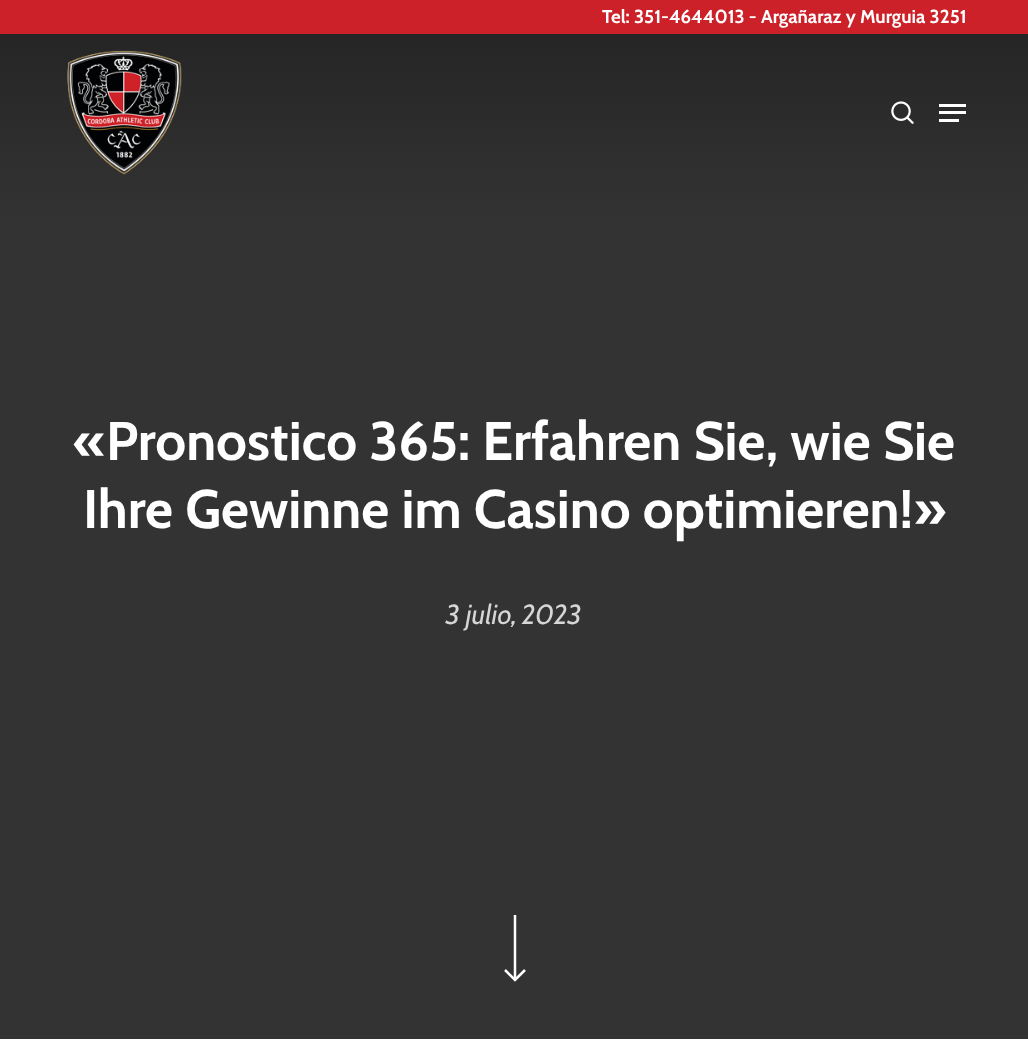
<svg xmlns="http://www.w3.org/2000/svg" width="1028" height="1041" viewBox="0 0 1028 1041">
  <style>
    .t1 { font: bold 18.75px Cabin; fill: #fff; }
    .t2 { font: bold 54.25px Cabin; fill: #fff; }
    .t3 { font: italic 27.5px Cabin; fill: #d6d6d6; }
  </style>
  <defs>
    <linearGradient id="g1" gradientUnits="userSpaceOnUse" x1="514" y1="228" x2="514" y2="0"><stop offset="0" stop-color="#333"/><stop offset="0.01" stop-color="#333"/><stop offset="0.16" stop-color="#313131"/><stop offset="0.75" stop-color="#272727"/><stop offset="1" stop-color="#222"/></linearGradient>
  </defs>
  <rect width="100%" height="100%" fill="#fff"/>
  <rect x="0" y="0" width="1028" height="34" fill="#cc2128"/>
  <text x="602" y="23" class="t1">Tel: 351-4644013 - Argañaraz y Murguia 3251</text>
  <rect x="0" y="34" width="1028" height="194" fill="url(#g1)"/>
  <image x="67" y="50" width="115" height="125" href="images/1.png"/>
  <image x="891" y="101" width="23" height="23" href="images/2.png"/>
  <rect x="939" y="104" width="27" height="3" fill="#fff"/>
  <rect x="939" y="119" width="20" height="3" fill="#fff"/>
  <rect x="939" y="111" width="27" height="3" fill="#fff"/>
  <rect x="0" y="228" width="1028" height="811" fill="#333"/>
  <text x="73" y="460" class="t2">«Pronostico 365: Erfahren Sie, wie Sie</text>
  <text x="83" y="528" class="t2">Ihre Gewinne im Casino optimieren!»</text>
  <text x="446" y="624" class="t3">3 julio, 2023</text>
  <path d="M515 915V979" fill="none" stroke="#fff" stroke-width="2.5"/>
  <path d="M505 970L515 980L525 970" fill="none" stroke="#fff" stroke-width="2.5"/>
</svg>
